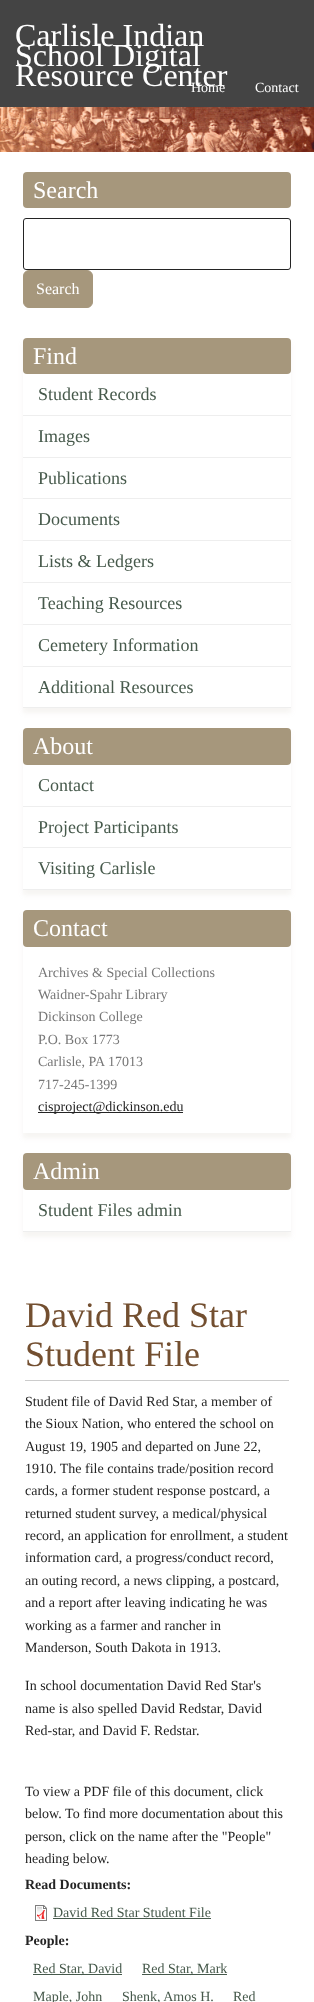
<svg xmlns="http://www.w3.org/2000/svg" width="314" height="2002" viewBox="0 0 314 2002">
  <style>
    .t1 { font: 32px Liberation Serif; fill: #fff; }
    .t2 { font: 14px Liberation Serif; fill: #fff; }
    .t3 { font: 24px Liberation Serif; fill: #fff; }
    .t4 { font: 16px Liberation Serif; fill: #fff; }
    .t5 { font: 18px Liberation Serif; fill: #46594b; }
    .t6 { font: 14px Liberation Serif; fill: #777; }
    .t7 { font: 14px Liberation Serif; fill: #242424; }
    .t8 { font: 36px Liberation Serif; fill: #734f30; }
    .t9 { font: bold 14px Liberation Serif; fill: #242424; }
    .t10 { font: 14px Liberation Serif; fill: #46594b; }
  </style>
  <defs>
    <clipPath id="clip1"><path d="M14 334H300V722H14ZM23 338H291V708H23Z" clip-rule="evenodd"/></clipPath>
    <clipPath id="clip2"><path d="M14 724H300V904H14ZM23 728H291V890H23Z" clip-rule="evenodd"/></clipPath>
    <clipPath id="clip3"><path d="M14 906H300V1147H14ZM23 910H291V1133H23Z" clip-rule="evenodd"/></clipPath>
    <clipPath id="clip4"><path d="M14 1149H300V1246H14ZM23 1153H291V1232H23Z" clip-rule="evenodd"/></clipPath>
  </defs>
  <rect width="100%" height="100%" fill="#fff"/>
  <rect x="0" y="0" width="314" height="107" fill="#444"/>
  <text x="15" y="46" class="t1">Carlisle Indian</text>
  <text x="15" y="66" class="t1">School Digital</text>
  <text x="15" y="86" class="t1">Resource Center</text>
  <text x="191" y="92" class="t2">Home</text>
  <text x="255" y="92" class="t2">Contact</text>
  <image x="0" y="107" width="314" height="45" href="images/1.png"/>
  <rect x="23" y="172" width="268" height="36" rx="4" fill="#a6977c"/>
  <text x="33" y="198" class="t3">Search</text>
  <rect x="23.5" y="218.5" width="267" height="51" rx="2.5" fill="none" stroke="#242424"/>
  <rect x="23.5" y="270.5" width="69" height="37" rx="5.5" fill="#a6977c" stroke="#a6977c"/>
  <text x="36" y="294" class="t4">Search</text>
  <g clip-path="url(#clip1)">
    <rect x="23" y="343" width="268" height="370" fill="#a6977c1a" filter="blur(2.5px)"/>
  </g>
  <rect x="23" y="338" width="268" height="36" rx="4" fill="#a6977c"/>
  <text x="33" y="364" class="t3">Find</text>
  <rect x="23" y="415" width="268" height="1" fill="#eee"/>
  <text x="38" y="400" class="t5">Student Records</text>
  <rect x="23" y="457" width="268" height="1" fill="#eee"/>
  <text x="38" y="442" class="t5">Images</text>
  <rect x="23" y="498" width="268" height="1" fill="#eee"/>
  <text x="38" y="484" class="t5">Publications</text>
  <rect x="23" y="540" width="268" height="1" fill="#eee"/>
  <text x="38" y="525" class="t5">Documents</text>
  <rect x="23" y="582" width="268" height="1" fill="#eee"/>
  <text x="38" y="567" class="t5">Lists &amp; Ledgers</text>
  <rect x="23" y="624" width="268" height="1" fill="#eee"/>
  <text x="38" y="609" class="t5">Teaching Resources</text>
  <rect x="23" y="666" width="268" height="1" fill="#eee"/>
  <text x="38" y="651" class="t5">Cemetery Information</text>
  <rect x="23" y="707" width="268" height="1" fill="#eee"/>
  <text x="38" y="693" class="t5">Additional Resources</text>
  <g clip-path="url(#clip2)">
    <rect x="23" y="733" width="268" height="162" fill="#a6977c1a" filter="blur(2.5px)"/>
  </g>
  <rect x="23" y="728" width="268" height="37" rx="4" fill="#a6977c"/>
  <text x="33" y="754" class="t3">About</text>
  <rect x="23" y="806" width="268" height="1" fill="#eee"/>
  <text x="38" y="791" class="t5">Contact</text>
  <rect x="23" y="847" width="268" height="1" fill="#eee"/>
  <text x="38" y="833" class="t5">Project Participants</text>
  <rect x="23" y="889" width="268" height="1" fill="#eee"/>
  <text x="38" y="874" class="t5">Visiting Carlisle</text>
  <g clip-path="url(#clip3)">
    <rect x="23" y="915" width="268" height="223" fill="#a6977c1a" filter="blur(2.5px)"/>
  </g>
  <rect x="23" y="910" width="268" height="37" rx="4" fill="#a6977c"/>
  <text x="33" y="936" class="t3">Contact</text>
  <text x="38" y="977" class="t6">Archives &amp; Special Collections</text>
  <text x="38" y="999" class="t6">Waidner-Spahr Library</text>
  <text x="38" y="1021" class="t6">Dickinson College</text>
  <text x="38" y="1044" class="t6">P.O. Box 1773</text>
  <text x="38" y="1066" class="t6">Carlisle, PA 17013</text>
  <text x="38" y="1089" class="t6">717-245-1399</text>
  <rect x="38" y="1112" width="145" height="1" fill="#242424"/>
  <text x="38" y="1111" class="t7">cisproject@dickinson.edu</text>
  <g clip-path="url(#clip4)">
    <rect x="23" y="1158" width="268" height="79" fill="#a6977c1a" filter="blur(2.5px)"/>
  </g>
  <rect x="23" y="1153" width="268" height="37" rx="4" fill="#a6977c"/>
  <text x="33" y="1179" class="t3">Admin</text>
  <rect x="23" y="1231" width="268" height="1" fill="#eee"/>
  <text x="38" y="1216" class="t5">Student Files admin</text>
  <rect x="25" y="1380" width="264" height="1" fill="#ccc"/>
  <text x="25" y="1327" class="t8">David Red Star</text>
  <text x="25" y="1366" class="t8">Student File</text>
  <text x="25" y="1406" class="t7">Student file of David Red Star, a member of</text>
  <text x="25" y="1428" class="t7">the Sioux Nation, who entered the school on</text>
  <text x="25" y="1451" class="t7">August 19, 1905 and departed on June 22,</text>
  <text x="25" y="1473" class="t7">1910. The file contains trade/position record</text>
  <text x="25" y="1495" class="t7">cards, a former student response postcard, a</text>
  <text x="25" y="1518" class="t7">returned student survey, a medical/physical</text>
  <text x="25" y="1540" class="t7">record, an application for enrollment, a student</text>
  <text x="25" y="1562" class="t7">information card, a progress/conduct record,</text>
  <text x="25" y="1585" class="t7">an outing record, a news clipping, a postcard,</text>
  <text x="25" y="1607" class="t7">and a report after leaving indicating he was</text>
  <text x="25" y="1630" class="t7">working as a farmer and rancher in</text>
  <text x="25" y="1652" class="t7">Manderson, South Dakota in 1913.</text>
  <text x="25" y="1690" class="t7">In school documentation David Red Star's</text>
  <text x="25" y="1713" class="t7">name is also spelled David Redstar, David</text>
  <text x="25" y="1735" class="t7">Red-star, and David F. Redstar.</text>
  <text x="25" y="1796" class="t7">To view a PDF file of this document, click</text>
  <text x="25" y="1818" class="t7">below. To find more documentation about this</text>
  <text x="25" y="1841" class="t7">person, click on the name after the "People"</text>
  <text x="25" y="1863" class="t7">heading below.</text>
  <text x="25" y="1889" class="t9">Read Documents:</text>
  <image x="35" y="1905" width="12" height="16" href="images/2.png"/>
  <text x="53" y="1917" class="t10">David Red Star Student File</text>
  <rect x="53" y="1918" width="158" height="1" fill="#46594b"/>
  <text x="25" y="1945" class="t9">People:</text>
  <rect x="33" y="1974" width="89" height="1" fill="#46594b"/>
  <text x="33" y="1973" class="t10">Red Star, David</text>
  <rect x="142" y="1974" width="85" height="1" fill="#46594b"/>
  <text x="142" y="1973" class="t10">Red Star, Mark</text>
  <text x="33" y="2001" class="t10">Maple, John</text>
  <text x="122" y="2001" class="t10">Shenk, Amos H.</text>
  <text x="233" y="2001" class="t10">Red</text>
</svg>
